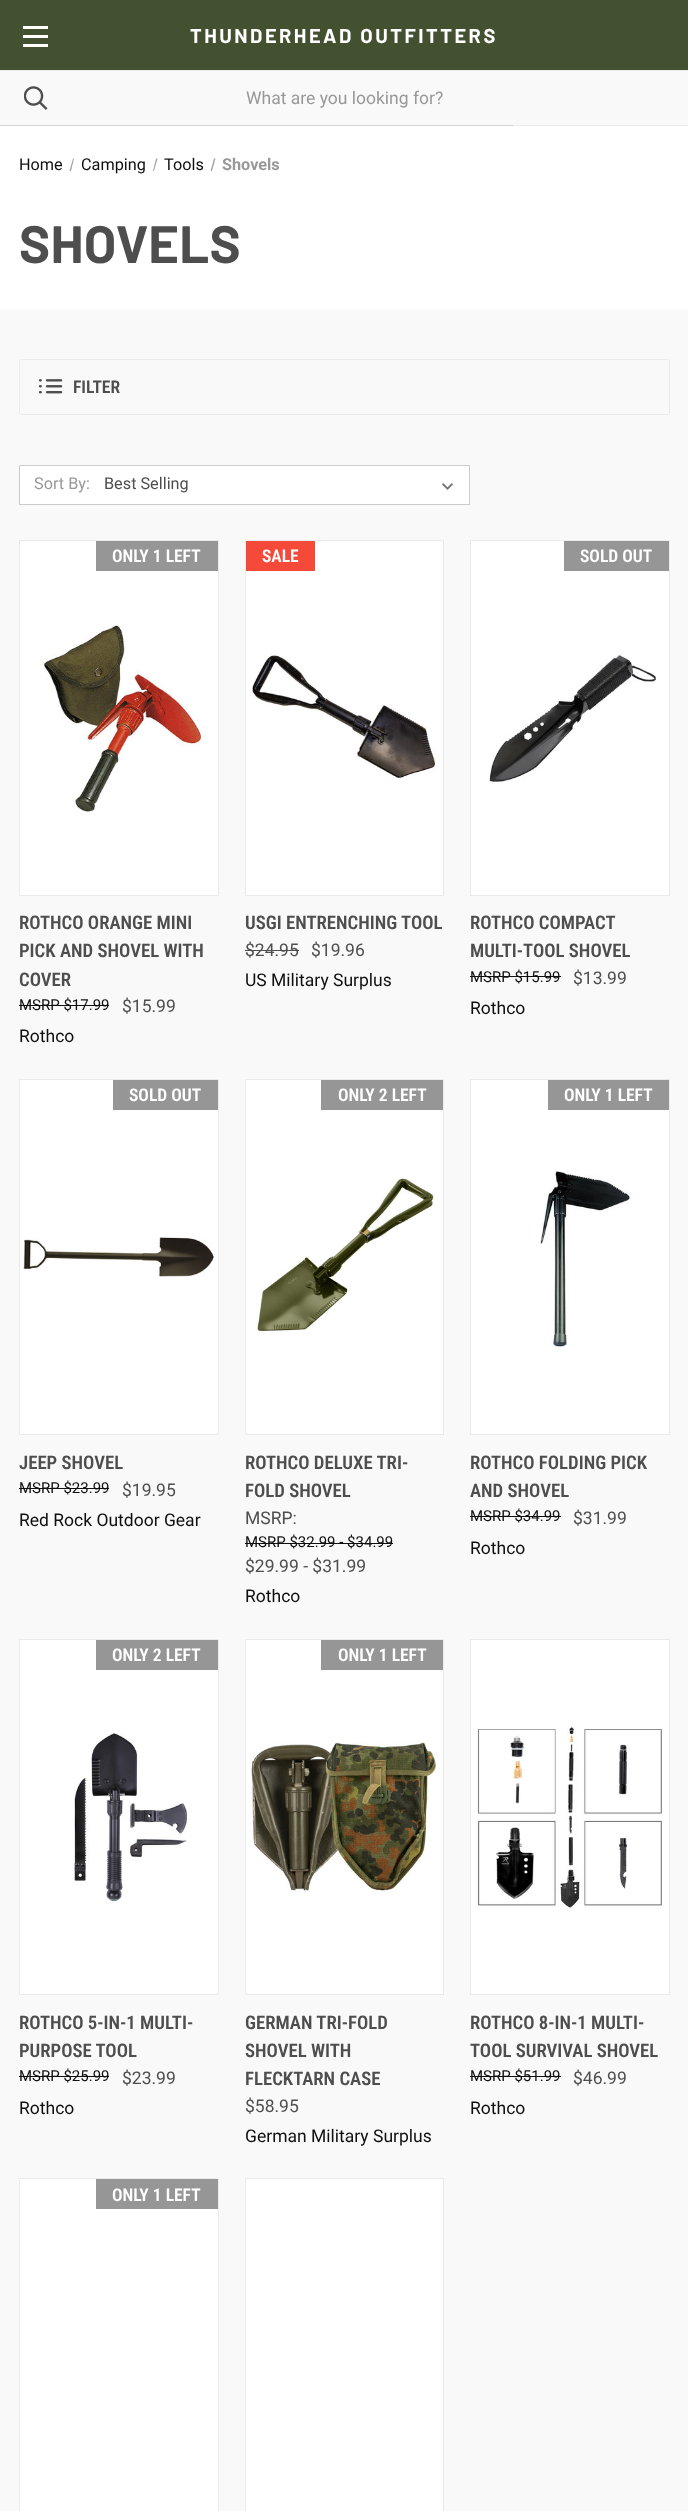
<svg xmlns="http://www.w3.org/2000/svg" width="688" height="2511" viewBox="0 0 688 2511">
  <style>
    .t1 { font: bold 20px Barlow; letter-spacing: 2.5px; fill: #fff; }
    .t2 { font: 17.5px Roboto; fill: #989898; }
    .t3 { font: 16.25px Roboto; fill: #0f0f0f; }
    .t4 { font: bold 16.25px Roboto; fill: #989898; }
    .t5 { font: bold 52.5px Barlow; letter-spacing: 0.25px; fill: #4e4e4e; }
    .t6 { font: 600 17.5px Roboto Condensed; fill: #4e4e4e; }
    .t7 { font: 16.25px Roboto; fill: #989898; }
    .t8 { font: 16.25px Roboto; fill: #4e4e4e; }
    .t9 { font: 600 17.5px Roboto Condensed; fill: #fff; }
    .t10 { font: 600 18.75px Roboto Condensed; fill: #4e4e4e; }
    .t11 { font: 15px Roboto; fill: #0f0f0f; }
    .t12 { font: 17.5px Roboto; fill: #4e4e4e; }
    .t13 { font: 17.5px Roboto; fill: #0f0f0f; }
  </style>
  <rect width="100%" height="100%" fill="#fff"/>
  <rect x="0" y="0" width="688" height="70" fill="#435130"/>
  <rect x="513" y="125" width="175" height="1" fill="#ebebeb"/>
  <rect x="23" y="35" width="25" height="3" fill="#fff"/>
  <rect x="23" y="26" width="25" height="3" fill="#fff"/>
  <rect x="23" y="44" width="25" height="3" fill="#fff"/>
  <text x="190" y="43" class="t1">THUNDERHEAD OUTFITTERS</text>
  <rect x="0" y="71" width="688" height="54" fill="#f9f9f9"/>
  <image x="24" y="86" width="24" height="24" href="images/1.png"/>
  <rect x="0" y="70" width="688" height="1" fill="#ebebeb"/>
  <text x="246" y="104" class="t2">What are you looking for?</text>
  <rect x="0" y="125" width="513" height="1" fill="#d2d2d2"/>
  <text x="19" y="170" class="t3">Home</text>
  <path d="M73 158.5H74L71 171H69.5Z" fill="#a3a3a3"/>
  <text x="81" y="170" class="t3">Camping</text>
  <text x="164" y="170" class="t3">Tools</text>
  <path d="M156 158.5H157.5L154 171H153ZM214 158.5H215.5L212 171H210.5Z" fill="#a3a3a3"/>
  <text x="222" y="170" class="t4">Shovels</text>
  <text x="19" y="263" class="t5">SHOVELS</text>
  <rect x="0" y="309" width="688" height="2202" fill="#f9f9f9"/>
  <rect x="19.5" y="359.5" width="650" height="55" rx="2" fill="none" stroke="#ebebeb"/>
  <image x="39" y="379" width="24" height="15" href="images/2.png"/>
  <text x="73" y="393" class="t6">FILTER</text>
  <rect x="19.5" y="465.5" width="450" height="39" fill="#fff" stroke="#ccc"/>
  <text x="34" y="489" class="t7">Sort By:</text>
  <image x="442" y="483" width="11" height="7" href="images/3.png"/>
  <text x="104" y="489" class="t8">Best Selling</text>
  <rect x="19.5" y="540.5" width="199" height="355" fill="#fff" stroke="#ebebeb"/>
  <rect x="96" y="541" width="122" height="30" fill="#969696"/>
  <text x="112" y="562" class="t9">ONLY 1 LEFT</text>
  <image x="42" y="624" width="163" height="188" href="images/4.png"/>
  <text x="19" y="929" class="t10">ROTHCO ORANGE MINI</text>
  <text x="19" y="957" class="t10">PICK AND SHOVEL WITH</text>
  <text x="19" y="986" class="t10">COVER</text>
  <text x="19" y="1010" class="t11">MSRP $17.99</text>
  <rect x="19" y="1005" width="90" height="1" fill="#0f0f0f"/>
  <text x="122" y="1012" class="t12">$15.99</text>
  <text x="19" y="1042" class="t13">Rothco</text>
  <rect x="245.5" y="540.5" width="198" height="355" fill="#fff" stroke="#ebebeb"/>
  <rect x="246" y="541" width="69" height="30" fill="#f54a3a"/>
  <text x="262" y="562" class="t9">SALE</text>
  <image x="251" y="653" width="185" height="125" href="images/5.png"/>
  <text x="245" y="929" class="t10">USGI ENTRENCHING TOOL</text>
  <text x="245" y="956" class="t12">$24.95</text>
  <rect x="245" y="950" width="54" height="1" fill="#4e4e4e"/>
  <text x="311" y="956" class="t12">$19.96</text>
  <text x="245" y="986" class="t13">US Military Surplus</text>
  <rect x="470.5" y="540.5" width="199" height="355" fill="#fff" stroke="#ebebeb"/>
  <rect x="564" y="541" width="105" height="30" fill="#969696"/>
  <text x="580" y="562" class="t9">SOLD OUT</text>
  <image x="489" y="655" width="168" height="128" href="images/6.png"/>
  <text x="470" y="929" class="t10">ROTHCO COMPACT</text>
  <text x="470" y="957" class="t10">MULTI-TOOL SHOVEL</text>
  <text x="470" y="982" class="t11">MSRP $15.99</text>
  <rect x="470" y="976" width="91" height="1" fill="#0f0f0f"/>
  <text x="573" y="984" class="t12">$13.99</text>
  <text x="470" y="1014" class="t13">Rothco</text>
  <rect x="19.5" y="1079.5" width="199" height="355" fill="#fff" stroke="#ebebeb"/>
  <rect x="113" y="1080" width="105" height="30" fill="#969696"/>
  <text x="129" y="1101" class="t9">SOLD OUT</text>
  <image x="23" y="1237" width="191" height="40" href="images/7.png"/>
  <text x="19" y="1469" class="t10">JEEP SHOVEL</text>
  <text x="19" y="1493" class="t11">MSRP $23.99</text>
  <rect x="19" y="1488" width="90" height="1" fill="#0f0f0f"/>
  <text x="122" y="1496" class="t12">$19.95</text>
  <text x="19" y="1526" class="t13">Red Rock Outdoor Gear</text>
  <rect x="245.5" y="1079.5" width="198" height="355" fill="#fff" stroke="#ebebeb"/>
  <rect x="321" y="1080" width="122" height="30" fill="#969696"/>
  <text x="338" y="1101" class="t9">ONLY 2 LEFT</text>
  <image x="255" y="1178" width="180" height="157" href="images/8.png"/>
  <text x="245" y="1469" class="t10">ROTHCO DELUXE TRI-</text>
  <text x="245" y="1497" class="t10">FOLD SHOVEL</text>
  <text x="245" y="1524" class="t12">MSRP:</text>
  <text x="245" y="1547" class="t11">MSRP $32.99 - $34.99</text>
  <rect x="245" y="1543" width="148" height="1" fill="#0f0f0f"/>
  <text x="245" y="1572" class="t12">$29.99 - $31.99</text>
  <text x="245" y="1602" class="t13">Rothco</text>
  <rect x="470.5" y="1079.5" width="199" height="355" fill="#fff" stroke="#ebebeb"/>
  <rect x="548" y="1080" width="121" height="30" fill="#969696"/>
  <text x="564" y="1101" class="t9">ONLY 1 LEFT</text>
  <image x="540" y="1171" width="91" height="176" href="images/9.png"/>
  <text x="470" y="1469" class="t10">ROTHCO FOLDING PICK</text>
  <text x="470" y="1497" class="t10">AND SHOVEL</text>
  <text x="470" y="1521" class="t11">MSRP $34.99</text>
  <rect x="470" y="1516" width="91" height="1" fill="#0f0f0f"/>
  <text x="573" y="1524" class="t12">$31.99</text>
  <text x="470" y="1554" class="t13">Rothco</text>
  <rect x="19.5" y="1639.5" width="199" height="355" fill="#fff" stroke="#ebebeb"/>
  <rect x="96" y="1640" width="122" height="30" fill="#969696"/>
  <text x="112" y="1661" class="t9">ONLY 2 LEFT</text>
  <image x="74" y="1733" width="116" height="170" href="images/10.png"/>
  <text x="19" y="2029" class="t10">ROTHCO 5-IN-1 MULTI-</text>
  <text x="19" y="2057" class="t10">PURPOSE TOOL</text>
  <text x="19" y="2081" class="t11">MSRP $25.99</text>
  <rect x="19" y="2076" width="90" height="1" fill="#0f0f0f"/>
  <text x="122" y="2084" class="t12">$23.99</text>
  <text x="19" y="2114" class="t13">Rothco</text>
  <rect x="245.5" y="1639.5" width="198" height="355" fill="#fff" stroke="#ebebeb"/>
  <rect x="321" y="1640" width="122" height="30" fill="#969696"/>
  <text x="338" y="1661" class="t9">ONLY 1 LEFT</text>
  <image x="250" y="1742" width="187" height="152" href="images/11.png"/>
  <text x="245" y="2029" class="t10">GERMAN TRI-FOLD</text>
  <text x="245" y="2057" class="t10">SHOVEL WITH</text>
  <text x="245" y="2085" class="t10">FLECKTARN CASE</text>
  <text x="245" y="2112" class="t12">$58.95</text>
  <text x="245" y="2142" class="t13">German Military Surplus</text>
  <rect x="470.5" y="1639.5" width="199" height="355" fill="#fff" stroke="#ebebeb"/>
  <image x="476" y="1726" width="186" height="183" href="images/12.png"/>
  <text x="470" y="2029" class="t10">ROTHCO 8-IN-1 MULTI-</text>
  <text x="470" y="2057" class="t10">TOOL SURVIVAL SHOVEL</text>
  <text x="470" y="2081" class="t11">MSRP $51.99</text>
  <rect x="470" y="2076" width="91" height="1" fill="#0f0f0f"/>
  <text x="573" y="2084" class="t12">$46.99</text>
  <text x="470" y="2114" class="t13">Rothco</text>
  <rect x="19.5" y="2178.5" width="199" height="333" fill="#fff" stroke="#ebebeb"/>
  <rect x="96" y="2179" width="122" height="30" fill="#969696"/>
  <text x="112" y="2201" class="t9">ONLY 1 LEFT</text>
  <rect x="245.5" y="2178.5" width="198" height="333" fill="#fff" stroke="#ebebeb"/>
</svg>
